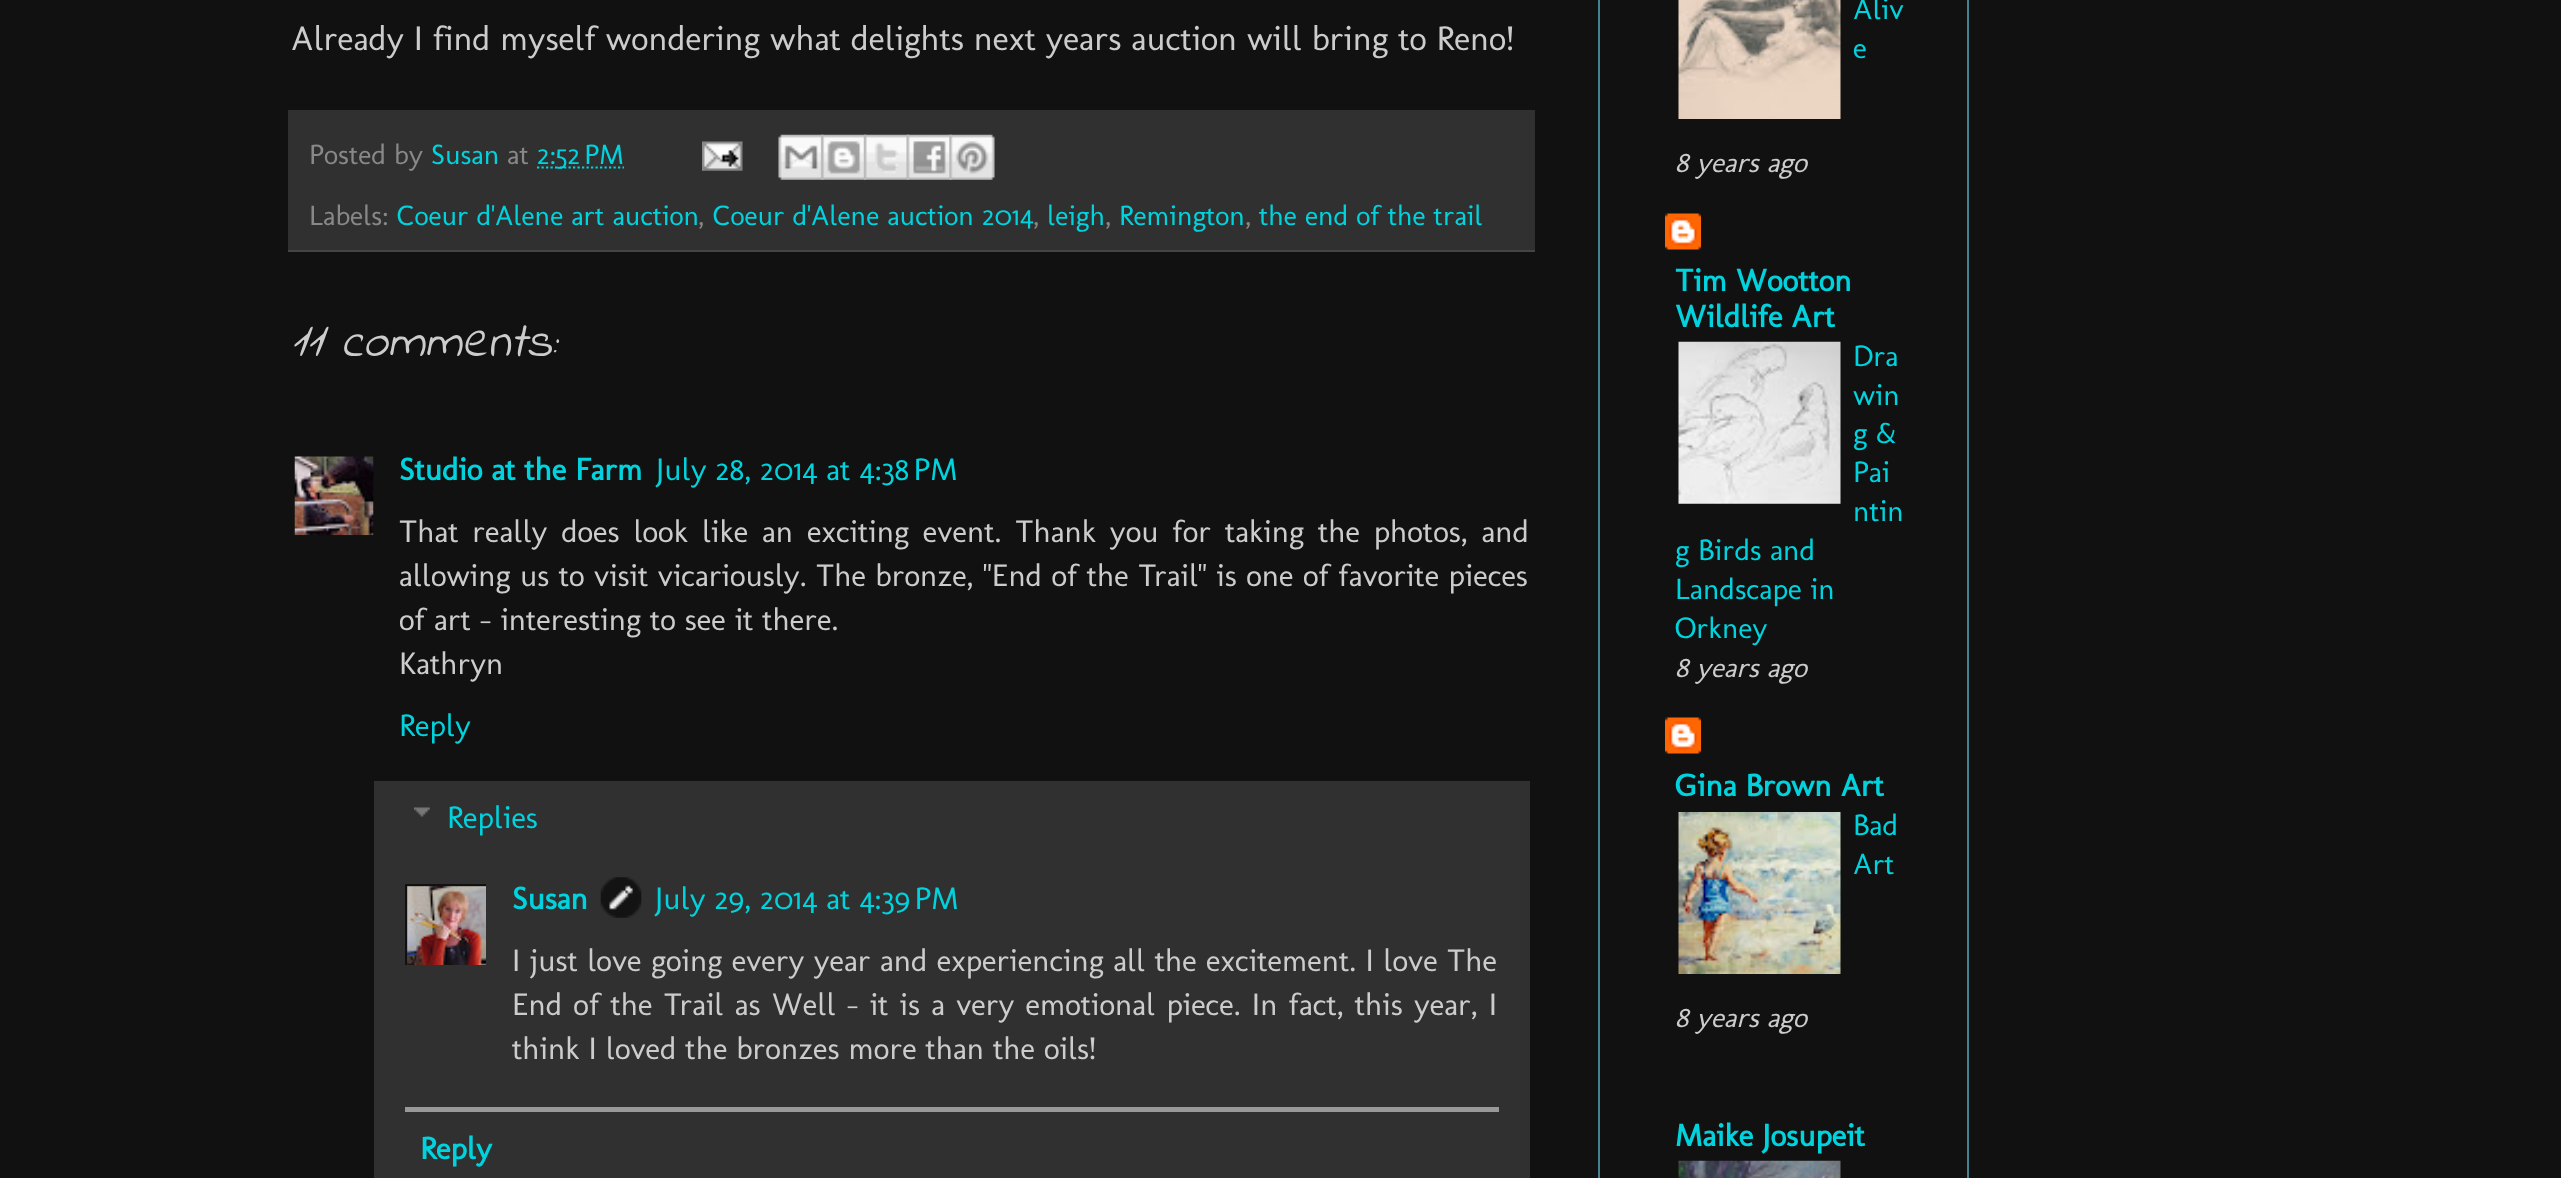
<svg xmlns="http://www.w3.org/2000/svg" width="2561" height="1178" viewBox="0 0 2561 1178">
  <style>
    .t1 { font: 34.65px Molengo; fill: #ccc; }
    .t2 { font: 28.4px Molengo; fill: #888; }
    .t3 { font: 28.4px Molengo; fill: #00d3dd; }
    .t4 { font: italic 49.5px Indie Flower; fill: #ccc; }
    .t5 { font: bold 31.5px Molengo; fill: #00d3dd; }
    .t6 { font: 31.5px Molengo; fill: #00d3dd; }
    .t7 { font: 31.5px Molengo; fill: #ccc; }
    .t8 { font: 30px Molengo; fill: #00d3dd; }
    .t9 { font: italic 28.5px Molengo; fill: #ccc; }
  </style>
  <defs>
    <clipPath id="clip1"><rect x="405" y="884" width="81" height="81"/></clipPath>
  </defs>
  <rect width="100%" height="100%" fill="#111"/>
  <text x="291" y="50" class="t1">Already I find myself wondering what delights next years auction will bring to Reno!</text>
  <rect x="288" y="110" width="1247" height="140" fill="#303030"/>
  <rect x="288" y="250" width="1247" height="2" fill="#444"/>
  <text x="309" y="164" class="t2">Posted by</text>
  <text x="431" y="164" class="t3">Susan</text>
  <text x="507" y="164" class="t2">at</text>
  <path d="M537 167.5H624" fill="none" stroke="#00d3dd" stroke-width="2.2" stroke-dasharray="2.25 2.25"/>
  <text x="537" y="164" class="t3">2:52 PM</text>
  <image x="702" y="141" width="41" height="30" href="images/1.png"/>
  <image x="778" y="134" width="46" height="46" href="images/2.png"/>
  <image x="821" y="134" width="46" height="46" href="images/3.png"/>
  <image x="864" y="134" width="45" height="46" href="images/4.png"/>
  <image x="906" y="134" width="46" height="46" href="images/5.png"/>
  <image x="949" y="134" width="46" height="46" href="images/6.png"/>
  <text x="309" y="225" class="t2">Labels:</text>
  <text x="397" y="225" class="t3">Coeur d'Alene art auction</text>
  <text x="698" y="225" class="t2">,</text>
  <text x="713" y="225" class="t3">Coeur d'Alene auction 2014</text>
  <text x="1033" y="225" class="t2">,</text>
  <text x="1047" y="225" class="t3">leigh</text>
  <text x="1105" y="225" class="t2">,</text>
  <text x="1119" y="225" class="t3">Remington</text>
  <text x="1245" y="225" class="t2">,</text>
  <text x="1259" y="225" class="t3">the end of the trail</text>
  <text x="291" y="356" class="t4">11 comments:</text>
  <image x="294" y="456" width="80" height="80" href="images/7.png"/>
  <text x="399" y="480" class="t5">Studio at the Farm</text>
  <text x="656" y="480" class="t6">July 28, 2014 at 4:38 PM</text>
  <text x="399" y="542" word-spacing="4.9" class="t7">That really does look like an exciting event. Thank you for taking the photos, and</text>
  <text x="399" y="586" word-spacing="0.5" class="t7">allowing us to visit vicariously. The bronze, "End of the Trail" is one of favorite pieces</text>
  <text x="399" y="630" class="t7">of art - interesting to see it there.</text>
  <text x="399" y="674" class="t7">Kathryn</text>
  <text x="399" y="736" class="t6">Reply</text>
  <rect x="374" y="781" width="1156" height="397" fill="#303030"/>
  <image x="414" y="807" width="16" height="10" href="images/8.png"/>
  <text x="447" y="828" class="t6">Replies</text>
  <g clip-path="url(#clip1)">
    <rect x="406" y="885" width="84" height="84" fill="none" stroke="#111" stroke-width="2"/>
  </g>
  <image x="407" y="886" width="79" height="79" href="images/9.png"/>
  <text x="512" y="909" class="t5">Susan</text>
  <image x="600" y="877" width="42" height="41" href="images/10.png"/>
  <text x="655" y="909" class="t6">July 29, 2014 at 4:39 PM</text>
  <text x="512" y="971" word-spacing="0.5" class="t7">I just love going every year and experiencing all the excitement. I love The</text>
  <text x="512" y="1015" word-spacing="2.25" class="t7">End of the Trail as Well - it is a very emotional piece. In fact, this year, I</text>
  <text x="512" y="1059" class="t7">think I loved the bronzes more than the oils!</text>
  <rect x="405" y="1107" width="1094" height="5" fill="#999"/>
  <text x="420" y="1159" class="t5">Reply</text>
  <image x="1678" y="0" width="163" height="119" href="images/11.png"/>
  <text x="1853" y="19" class="t8">Aliv</text>
  <text x="1853" y="58" class="t8">e</text>
  <text x="1675" y="172" class="t9">8 years ago</text>
  <image x="1665" y="213" width="36" height="37" href="images/12.png"/>
  <text x="1675" y="291" class="t5">Tim Wootton</text>
  <text x="1675" y="327" class="t5">Wildlife Art</text>
  <image x="1678" y="341" width="163" height="163" href="images/13.png"/>
  <text x="1853" y="366" class="t8">Dra</text>
  <text x="1853" y="405" class="t8">win</text>
  <text x="1853" y="443" class="t8">g &amp;</text>
  <text x="1853" y="482" class="t8">Pai</text>
  <text x="1853" y="521" class="t8">ntin</text>
  <text x="1675" y="560" class="t8">g Birds and</text>
  <text x="1675" y="599" class="t8">Landscape in</text>
  <text x="1675" y="638" class="t8">Orkney</text>
  <text x="1675" y="677" class="t9">8 years ago</text>
  <image x="1665" y="717" width="36" height="37" href="images/12.png"/>
  <text x="1675" y="796" class="t5">Gina Brown Art</text>
  <image x="1678" y="812" width="163" height="162" href="images/14.png"/>
  <text x="1853" y="835" class="t8">Bad</text>
  <text x="1853" y="874" class="t8">Art</text>
  <text x="1675" y="1027" class="t9">8 years ago</text>
  <text x="1675" y="1146" class="t5">Maike Josupeit</text>
  <image x="1678" y="1160" width="163" height="18" href="images/15.png"/>
  <rect x="1967" y="0" width="2" height="1178" fill="#45818e"/>
  <rect x="1598" y="0" width="2" height="1178" fill="#45818e"/>
</svg>
